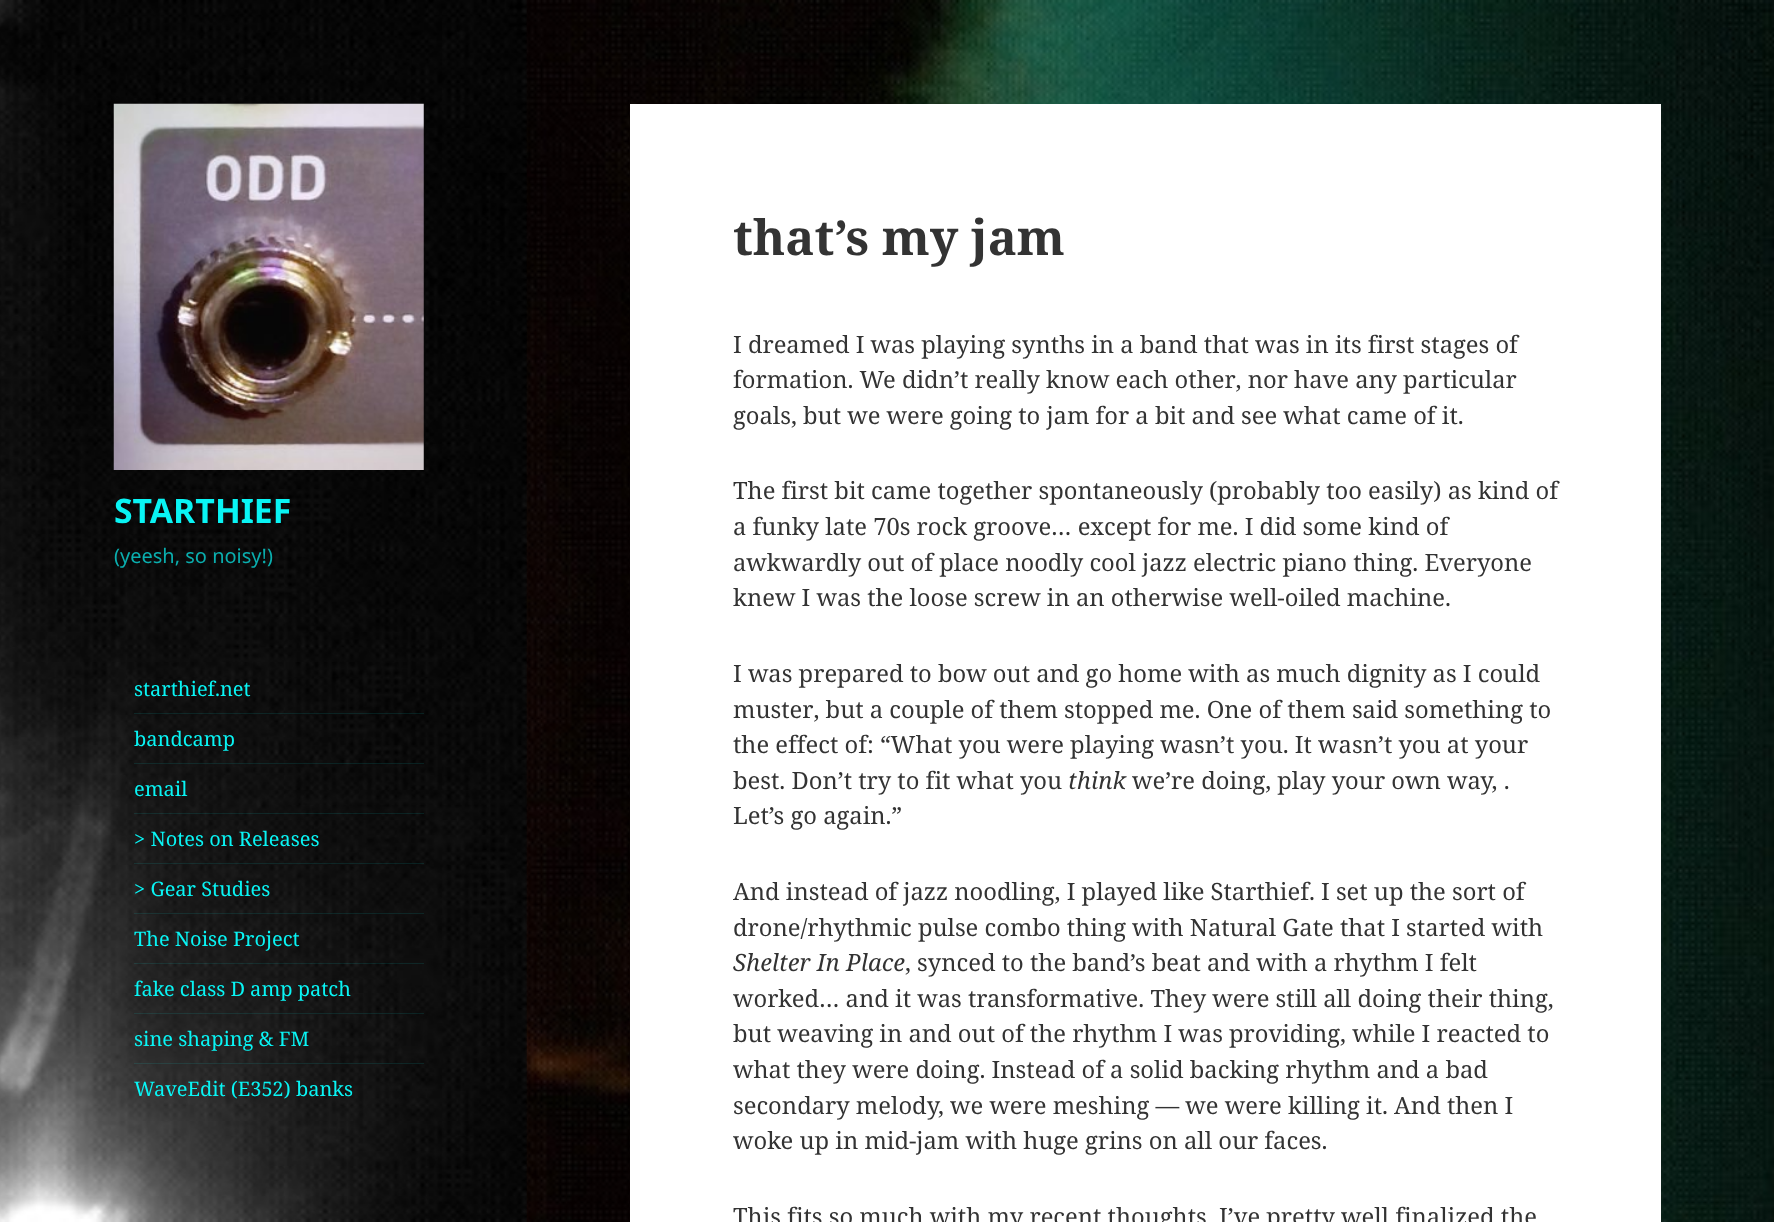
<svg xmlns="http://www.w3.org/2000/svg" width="1774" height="1222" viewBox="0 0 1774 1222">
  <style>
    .t1 { font: bold 33.75px Noto Sans; fill: #09f4f4; }
    .t2 { font: 20px Noto Sans; fill: #0aaeae; }
    .t3 { font: 20px Noto Serif; fill: #09f4f4; }
    .t4 { font: bold 48.75px Noto Serif; fill: #333; }
    .t5 { font: 23.75px Noto Serif; fill: #333; }
    .t6 { font: italic 23.75px Noto Serif; fill: #333; }
  </style>
  <rect width="100%" height="100%" fill="#fff"/>
  <image x="525" y="0" width="1249" height="1222" href="images/1.png"/>
  <image x="0" y="0" width="527" height="1222" href="images/2.png"/>
  <image x="113" y="103" width="311" height="367" href="images/3.png"/>
  <text x="114" y="523" class="t1">STARTHIEF</text>
  <text x="114" y="563" class="t2">(yeesh, so noisy!)</text>
  <text x="134" y="696" class="t3">starthief.net</text>
  <rect x="134" y="713" width="290" height="1" fill="#09f4f41a"/>
  <text x="134" y="746" class="t3">bandcamp</text>
  <rect x="134" y="763" width="290" height="1" fill="#09f4f41a"/>
  <text x="134" y="796" class="t3">email</text>
  <rect x="134" y="813" width="290" height="1" fill="#09f4f41a"/>
  <text x="134" y="846" class="t3">&gt; Notes on Releases</text>
  <rect x="134" y="863" width="290" height="1" fill="#09f4f41a"/>
  <text x="134" y="896" class="t3">&gt; Gear Studies</text>
  <rect x="134" y="913" width="290" height="1" fill="#09f4f41a"/>
  <text x="134" y="946" class="t3">The Noise Project</text>
  <rect x="134" y="963" width="290" height="1" fill="#09f4f41a"/>
  <text x="134" y="996" class="t3">fake class D amp patch</text>
  <rect x="134" y="1013" width="290" height="1" fill="#09f4f41a"/>
  <text x="134" y="1046" class="t3">sine shaping &amp; FM</text>
  <rect x="134" y="1063" width="290" height="1" fill="#09f4f41a"/>
  <text x="134" y="1096" class="t3">WaveEdit (E352) banks</text>
  <rect x="630" y="104" width="1031" height="1118" fill="#fff"/>
  <text x="733" y="255" class="t4">that’s my jam</text>
  <text x="733" y="353" class="t5">I dreamed I was playing synths in a band that was in its first stages of</text>
  <text x="733" y="388" class="t5">formation. We didn’t really know each other, nor have any particular</text>
  <text x="733" y="424" class="t5">goals, but we were going to jam for a bit and see what came of it.</text>
  <text x="733" y="499" class="t5">The first bit came together spontaneously (probably too easily) as kind of</text>
  <text x="733" y="535" class="t5">a funky late 70s rock groove… except for me. I did some kind of</text>
  <text x="733" y="571" class="t5">awkwardly out of place noodly cool jazz electric piano thing. Everyone</text>
  <text x="733" y="606" class="t5">knew I was the loose screw in an otherwise well-oiled machine.</text>
  <text x="733" y="682" class="t5">I was prepared to bow out and go home with as much dignity as I could</text>
  <text x="733" y="718" class="t5">muster, but a couple of them stopped me. One of them said something to</text>
  <text x="733" y="753" class="t5">the effect of: “What you were playing wasn’t you. It wasn’t you at your</text>
  <text x="733" y="789" class="t5">best. Don’t try to fit what you</text>
  <text x="1068" y="789" class="t6">think</text>
  <text x="1132" y="789" class="t5">we’re doing, play your own way, .</text>
  <text x="733" y="824" class="t5">Let’s go again.”</text>
  <text x="733" y="900" class="t5">And instead of jazz noodling, I played like Starthief. I set up the sort of</text>
  <text x="733" y="936" class="t5">drone/rhythmic pulse combo thing with Natural Gate that I started with</text>
  <text x="733" y="971" class="t6">Shelter In Place</text>
  <text x="905" y="971" class="t5">, synced to the band’s beat and with a rhythm I felt</text>
  <text x="733" y="1007" class="t5">worked… and it was transformative. They were still all doing their thing,</text>
  <text x="733" y="1042" class="t5">but weaving in and out of the rhythm I was providing, while I reacted to</text>
  <text x="733" y="1078" class="t5">what they were doing. Instead of a solid backing rhythm and a bad</text>
  <text x="733" y="1114" class="t5">secondary melody, we were meshing — we were killing it. And then I</text>
  <text x="733" y="1149" class="t5">woke up in mid-jam with huge grins on all our faces.</text>
  <text x="733" y="1225" class="t5">This fits so much with my recent thoughts</text>
  <text x="1219" y="1225" class="t5">I’ve pretty well finalized the</text>
</svg>
